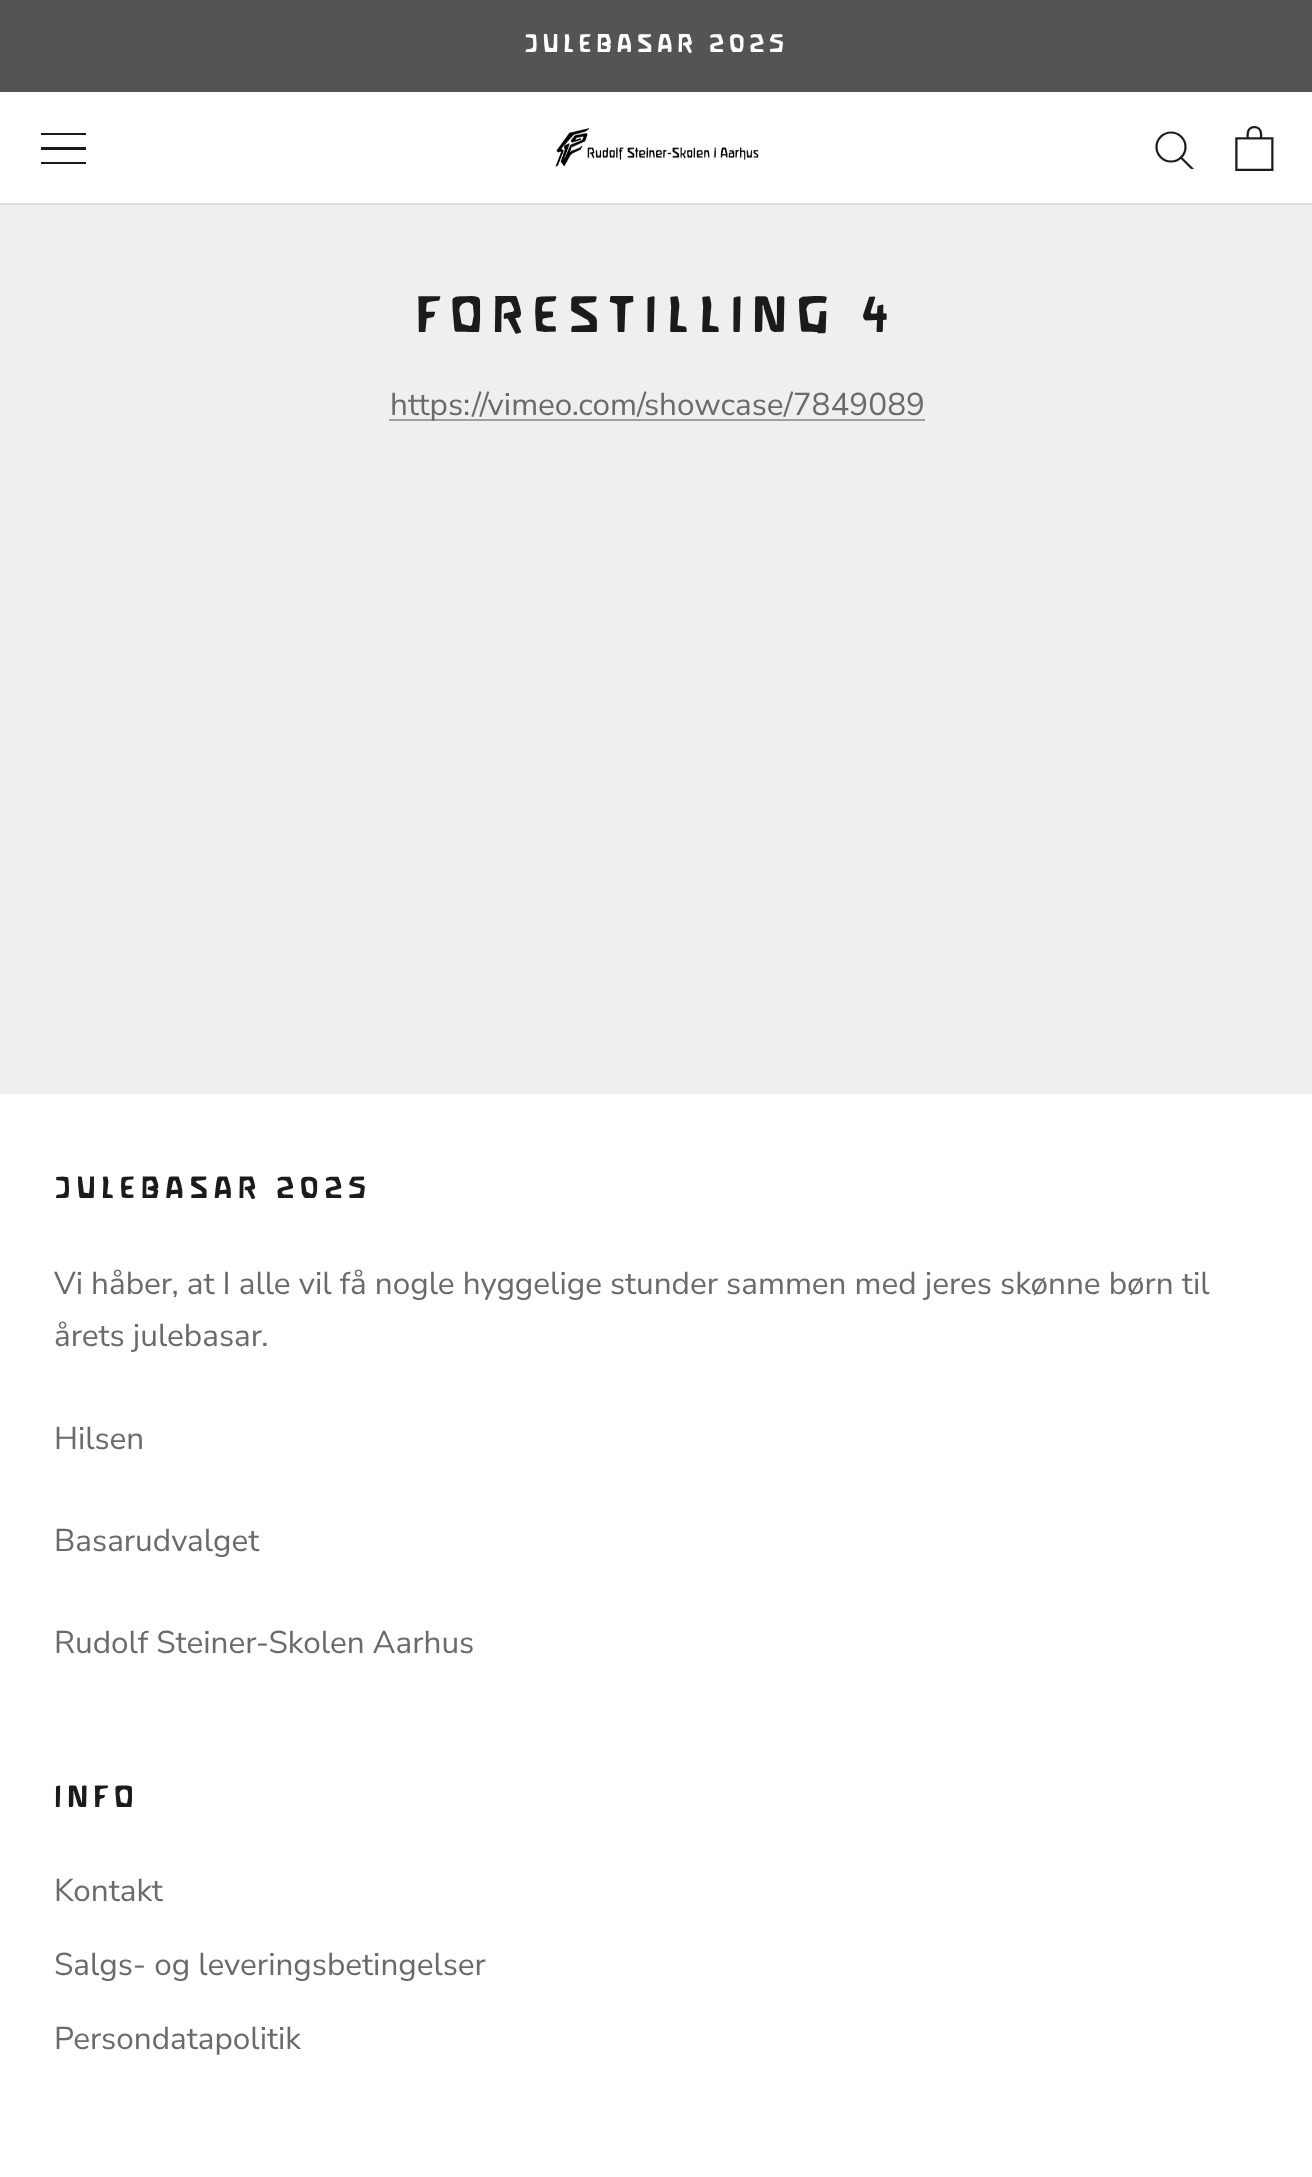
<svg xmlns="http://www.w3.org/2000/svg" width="1312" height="2177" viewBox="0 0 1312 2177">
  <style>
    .t1 { font: bold 22.5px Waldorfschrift; letter-spacing: 4.5px; fill: #fff; }
    .t2 { font: bold 45px Waldorfschrift; letter-spacing: 9px; fill: #1c1b1b; }
    .t3 { font: 31.5px Nunito Sans; fill: #6a6a6a; }
    .t4 { font: bold 27px Waldorfschrift; letter-spacing: 5.4px; fill: #1c1b1b; }
  </style>
  <defs>
    <clipPath id="clip1"><rect x="41" y="133" width="45" height="31"/></clipPath>
    <clipPath id="clip2"><rect x="1154" y="131" width="41" height="38"/></clipPath>
  </defs>
  <rect width="100%" height="100%" fill="#efefef"/>
  <rect x="0" y="0" width="1312" height="92" fill="#545454"/>
  <text x="524" y="52" class="t1">JULEBASAR 2025</text>
  <rect x="0" y="92" width="1312" height="111" fill="#fff"/>
  <rect x="0" y="203" width="1312" height="2" fill="#ddd"/>
  <g clip-path="url(#clip1)">
    <path d="M40 164V162H86V164ZM40 147H86V150H40ZM40 133H86V135H40Z" fill="#1c1b1b"/>
  </g>
  <image x="555" y="128" width="204" height="39" href="images/1.png"/>
  <g clip-path="url(#clip2)">
    <path d="M1192.5 169L1181 157.5" fill="none" stroke="#1c1b1b" stroke-width="2.2" stroke-linecap="square"/>
  </g>
  <circle cx="1171" cy="147" r="14.5" fill="none" stroke="#1c1b1b" stroke-width="2.2"/>
  <image x="1235" y="126" width="39" height="45" href="images/2.png"/>
  <text x="416" y="332" class="t2">FORESTILLING 4</text>
  <rect x="389" y="419" width="536" height="2" fill="#9f9f9f"/>
  <text x="390" y="415" class="t3">https://vimeo.com/showcase/7849089</text>
  <rect x="0" y="1094" width="1312" height="1083" fill="#fff"/>
  <text x="54" y="1198" class="t4">JULEBASAR 2025</text>
  <text x="54" y="1294" class="t3">Vi håber, at I alle vil få nogle hyggelige stunder sammen med jeres skønne børn til</text>
  <text x="54" y="1346" class="t3">årets julebasar.</text>
  <text x="54" y="1449" class="t3">Hilsen</text>
  <text x="54" y="1551" class="t3">Basarudvalget</text>
  <text x="54" y="1653" class="t3">Rudolf Steiner-Skolen Aarhus</text>
  <text x="54" y="1807" class="t4">INFO</text>
  <text x="54" y="1901" class="t3">Kontakt</text>
  <text x="54" y="1975" class="t3">Salgs- og leveringsbetingelser</text>
  <text x="54" y="2049" class="t3">Persondatapolitik</text>
</svg>
